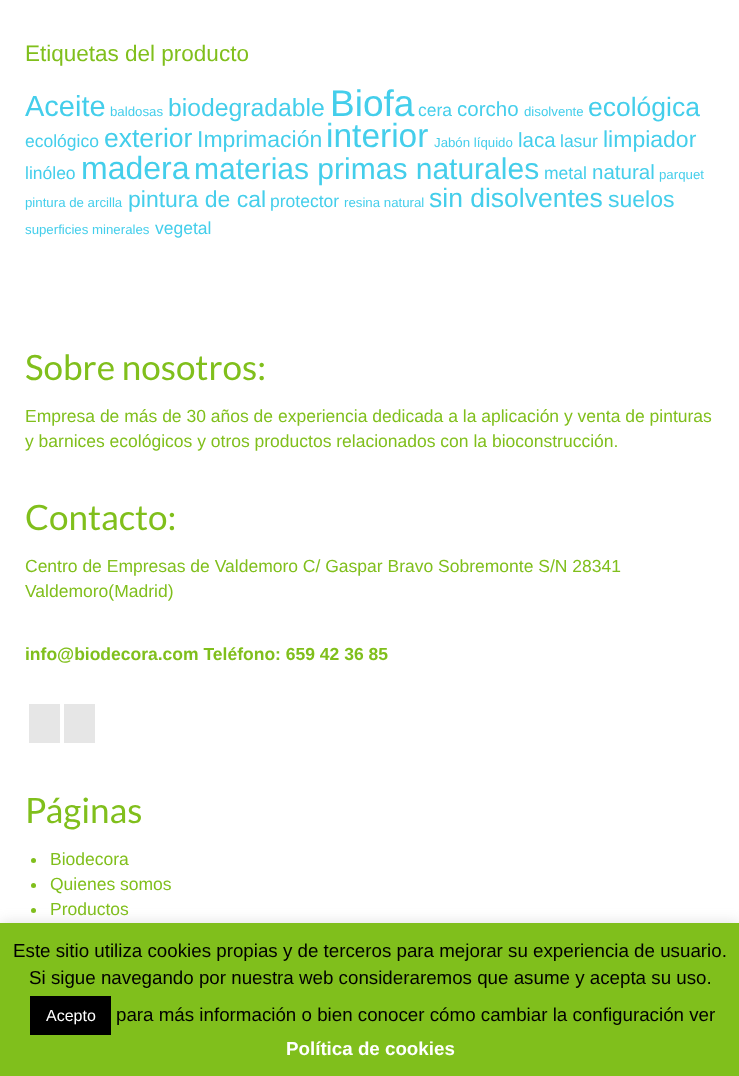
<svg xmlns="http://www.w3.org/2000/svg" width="739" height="1076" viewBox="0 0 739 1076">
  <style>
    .t1 { font: 22.5px Liberation Sans; fill: #80bf1c; }
    .t2 { font: 29px Liberation Sans; fill: #44ceeb; }
    .t3 { font: 13.25px Liberation Sans; fill: #44ceeb; }
    .t4 { font: 24.75px Liberation Sans; fill: #44ceeb; }
    .t5 { font: 37px Liberation Sans; fill: #44ceeb; }
    .t6 { font: 17.5px Liberation Sans; fill: #44ceeb; }
    .t7 { font: 20.5px Liberation Sans; fill: #44ceeb; }
    .t8 { font: 26.5px Liberation Sans; fill: #44ceeb; }
    .t9 { font: 23px Liberation Sans; fill: #44ceeb; }
    .t10 { font: 33.5px Liberation Sans; fill: #44ceeb; }
    .t11 { font: 32px Liberation Sans; fill: #44ceeb; }
    .t12 { font: 30px Liberation Sans; fill: #44ceeb; }
    .t13 { font: 35px Lato; fill: #80bf1c; }
    .t14 { font: 17.5px Liberation Sans; fill: #80bf1c; }
    .t15 { font: bold 17.5px Liberation Sans; fill: #80bf1c; }
    .t16 { font: 18.75px Liberation Sans; fill: #000; }
    .t17 { font: 16px Liberation Sans; fill: #fff; }
    .t18 { font: bold 18.75px Liberation Sans; fill: #fff; }
  </style>
  <rect width="100%" height="100%" fill="#fff"/>
  <text x="25" y="61" class="t1">Etiquetas del producto</text>
  <text x="25" y="116" class="t2">Aceite</text>
  <text x="110" y="116" class="t3">baldosas</text>
  <text x="168" y="116" class="t4">biodegradable</text>
  <text x="330" y="116" class="t5">Biofa</text>
  <text x="418" y="116" class="t6">cera</text>
  <text x="457" y="116" class="t7">corcho</text>
  <text x="524" y="116" class="t3">disolvente</text>
  <text x="588" y="116" class="t8">ecológica</text>
  <text x="25" y="147" class="t6">ecológico</text>
  <text x="104" y="147" class="t8">exterior</text>
  <text x="197" y="147" class="t9">Imprimación</text>
  <text x="326" y="147" class="t10">interior</text>
  <text x="434" y="147" class="t3">Jabón líquido</text>
  <text x="518" y="147" class="t7">laca</text>
  <text x="560" y="147" class="t6">lasur</text>
  <text x="603" y="147" class="t9">limpiador</text>
  <text x="25" y="179" class="t6">linóleo</text>
  <text x="81" y="179" class="t11">madera</text>
  <text x="194" y="179" class="t12">materias primas naturales</text>
  <text x="544" y="179" class="t6">metal</text>
  <text x="592" y="179" class="t7">natural</text>
  <text x="659" y="179" class="t3">parquet</text>
  <text x="25" y="207" class="t3">pintura de arcilla</text>
  <text x="128" y="207" class="t9">pintura de cal</text>
  <text x="270" y="207" class="t6">protector</text>
  <text x="344" y="207" class="t3">resina natural</text>
  <text x="429" y="207" class="t8">sin disolventes</text>
  <text x="608" y="207" class="t9">suelos</text>
  <text x="25" y="234" class="t3">superficies minerales</text>
  <text x="155" y="234" class="t6">vegetal</text>
  <text x="25" y="380" class="t13">Sobre nosotros:</text>
  <text x="25" y="422" class="t14">Empresa de más de 30 años de experiencia dedicada a la aplicación y venta de pinturas</text>
  <text x="25" y="447" class="t14">y barnices ecológicos y otros productos relacionados con la bioconstrucción.</text>
  <text x="25" y="530" class="t13">Contacto:</text>
  <text x="25" y="572" class="t14">Centro de Empresas de Valdemoro C/ Gaspar Bravo Sobremonte S/N 28341</text>
  <text x="25" y="597" class="t14">Valdemoro(Madrid)</text>
  <text x="25" y="660" class="t15">info@biodecora.com Teléfono: 659 42 36 85</text>
  <rect x="29" y="704" width="31" height="39" fill="#e6e6e6"/>
  <rect x="64" y="704" width="31" height="39" fill="#e6e6e6"/>
  <text x="25" y="823" class="t13">Páginas</text>
  <circle cx="33.5" cy="860.5" r="2.5" fill="#80bf1c"/>
  <text x="50" y="865" class="t14">Biodecora</text>
  <circle cx="33.5" cy="885.5" r="2.5" fill="#80bf1c"/>
  <text x="50" y="890" class="t14">Quienes somos</text>
  <circle cx="33.5" cy="910.5" r="2.5" fill="#80bf1c"/>
  <text x="50" y="915" class="t14">Productos</text>
  <rect x="0" y="921" width="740" height="154" fill="#acabab4d" filter="blur(6px)"/>
  <rect x="0" y="923" width="739" height="153" fill="#80bf1c"/>
  <text x="13" y="957" class="t16">Este sitio utiliza cookies propias y de terceros para mejorar su experiencia de usuario.</text>
  <text x="29" y="984" class="t16">Si sigue navegando por nuestra web consideraremos que asume y acepta su uso.</text>
  <rect x="30" y="996" width="81" height="39" fill="#000"/>
  <text x="46" y="1021" class="t17">Acepto</text>
  <text x="116" y="1021" class="t16">para más información o bien conocer cómo cambiar la configuración ver</text>
  <text x="286" y="1055" class="t18">Política de cookies</text>
</svg>
